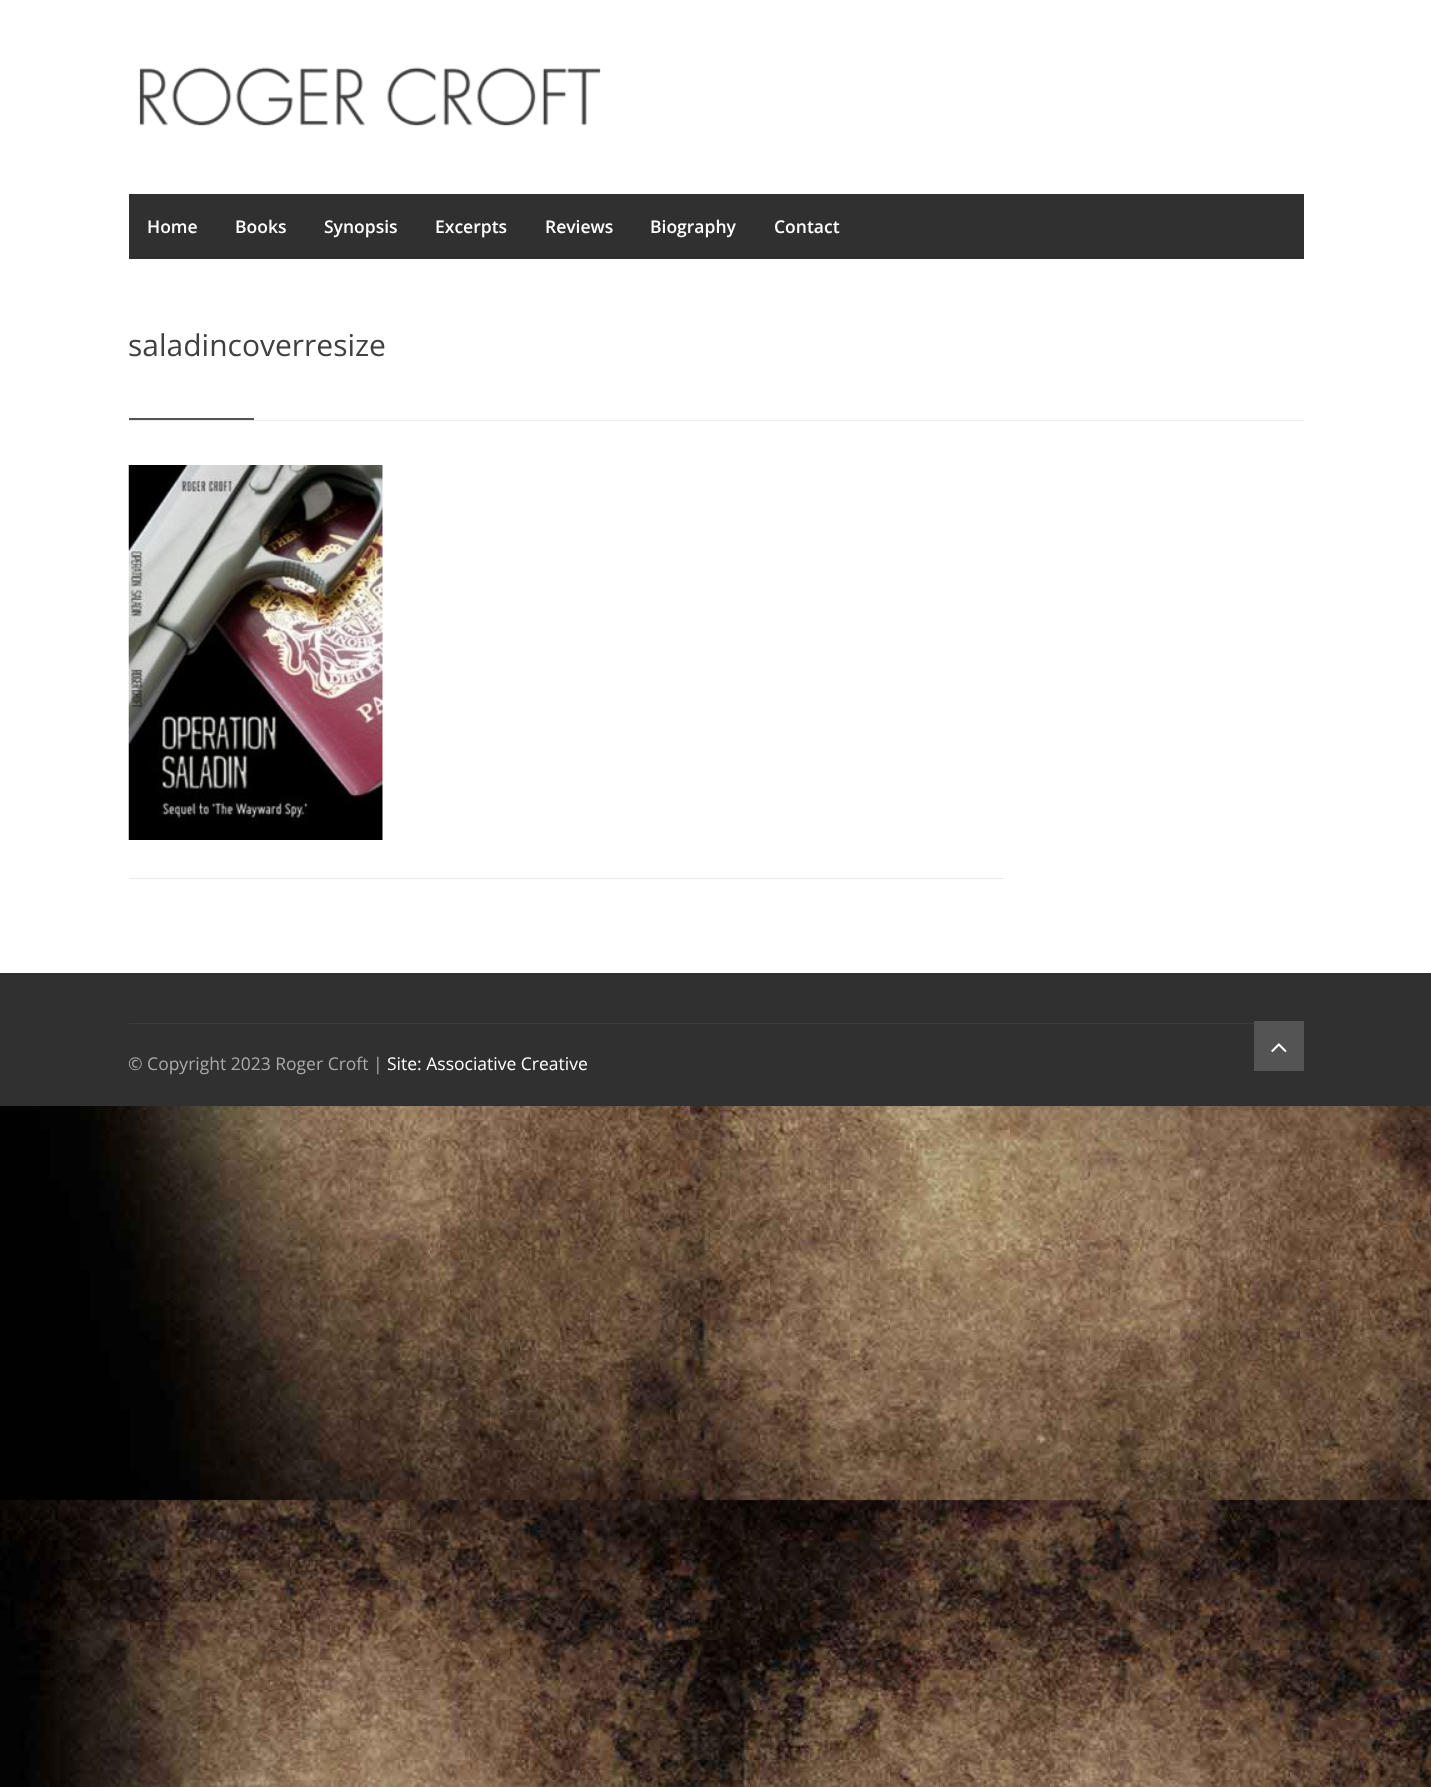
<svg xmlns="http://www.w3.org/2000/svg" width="1431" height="1787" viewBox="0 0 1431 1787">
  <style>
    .t1 { font: 600 17.5px Open Sans; fill: #fff; }
    .t2 { font: 30px Open Sans; fill: #404040; }
    .t3 { font: 17.5px Open Sans; fill: #aaa; }
    .t4 { font: 17.5px Open Sans; fill: #fff; }
  </style>
  <rect width="100%" height="100%" fill="#fff"/>
  <image x="0" y="1106" width="1431" height="681" href="images/1.png"/>
  <image x="139" y="67" width="462" height="60" href="images/2.png"/>
  <rect x="129" y="194" width="1175" height="65" fill="#303030"/>
  <text x="147" y="233" class="t1">Home</text>
  <text x="235" y="233" class="t1">Books</text>
  <text x="324" y="233" class="t1">Synopsis</text>
  <text x="435" y="233" class="t1">Excerpts</text>
  <text x="545" y="233" class="t1">Reviews</text>
  <text x="650" y="233" class="t1">Biography</text>
  <text x="774" y="233" class="t1">Contact</text>
  <rect x="129" y="420" width="1175" height="1" fill="#e9e9e9"/>
  <text x="128" y="356" class="t2">saladincoverresize</text>
  <rect x="129" y="418" width="125" height="2" fill="#545454"/>
  <rect x="129" y="878" width="875" height="1" fill="#e9e9e9"/>
  <image x="128" y="465" width="255" height="375" href="images/3.png"/>
  <rect x="0" y="973" width="1431" height="133" fill="#303030"/>
  <rect x="129" y="1023" width="1125" height="1" fill="#3c3c3c"/>
  <text x="128" y="1070" class="t3">© Copyright 2023 Roger Croft |</text>
  <text x="387" y="1070" class="t4">Site: Associative Creative</text>
  <rect x="1254" y="1021" width="50" height="50" fill="#545454"/>
  <image x="1271" y="1043" width="16" height="10" href="images/4.png"/>
</svg>
